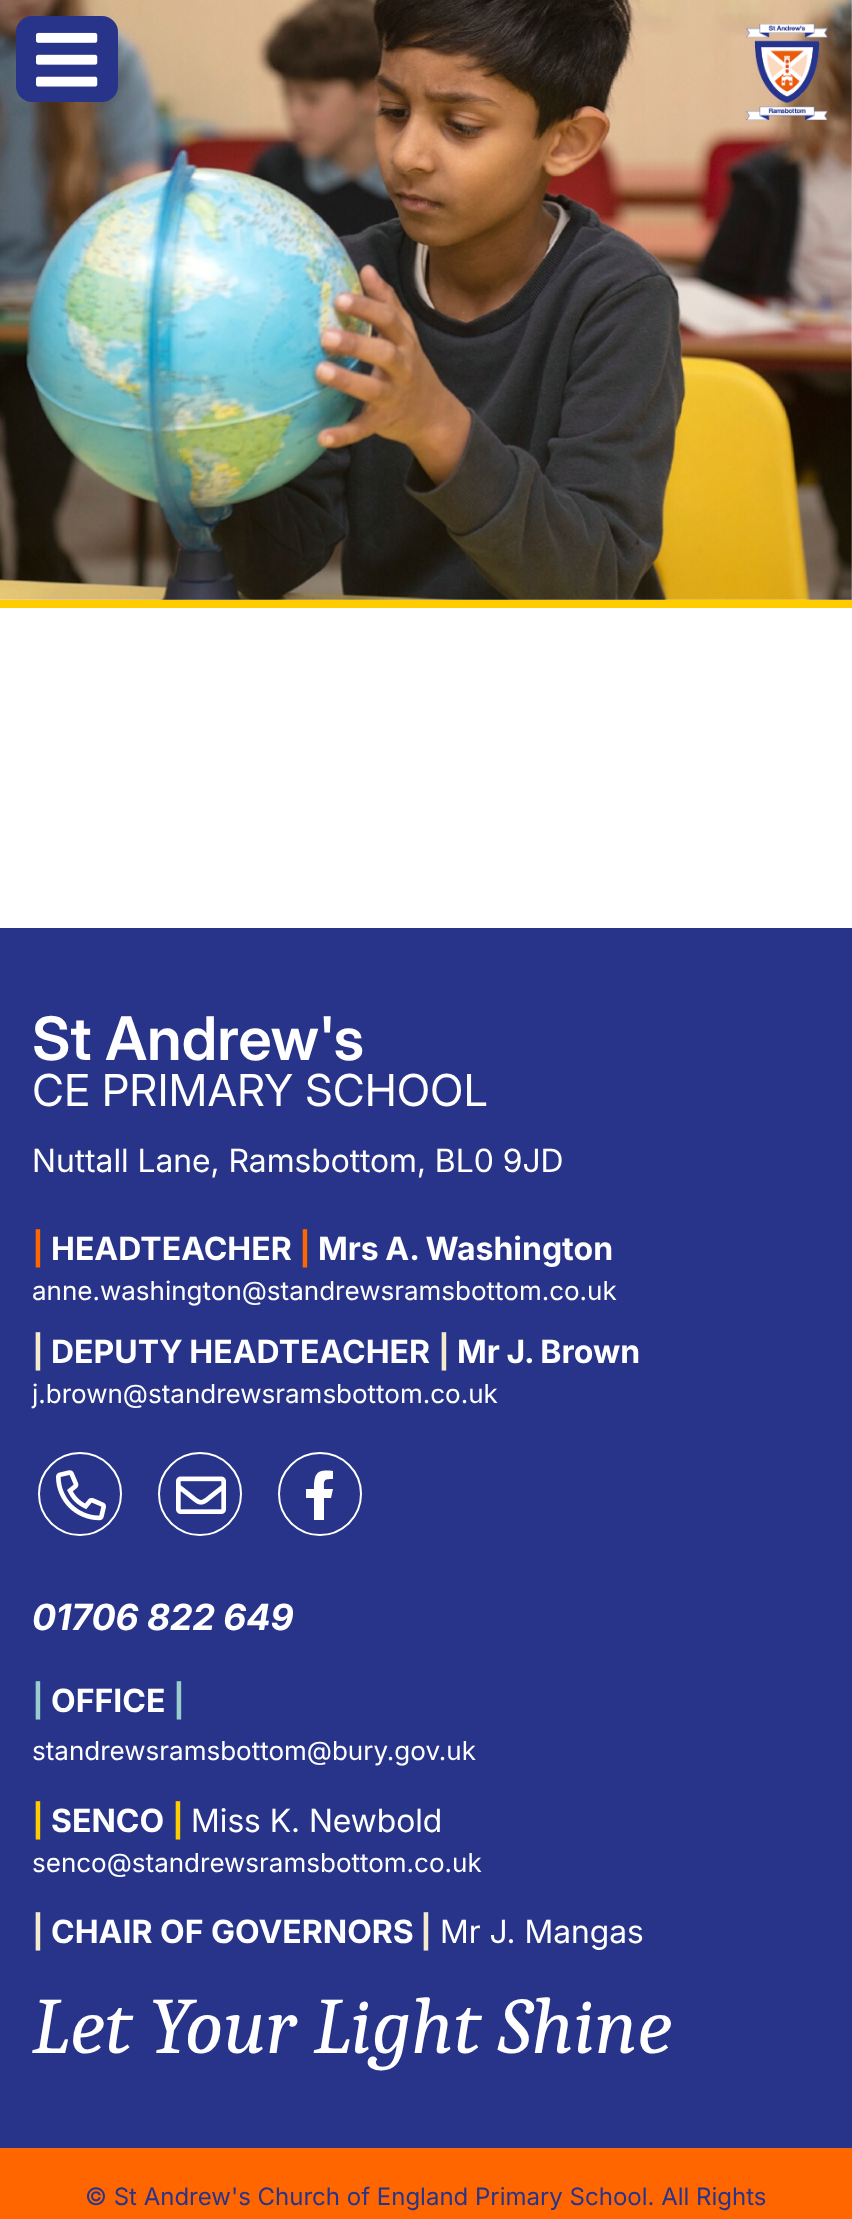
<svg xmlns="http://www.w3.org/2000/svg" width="852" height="2219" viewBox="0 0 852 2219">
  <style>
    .t1 { font: 600 60px Inter; fill: #fff; }
    .t2 { font: 44px 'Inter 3'; fill: #fff; }
    .t3 { font: 32px 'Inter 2'; fill: #fff; }
    .t4 { font: bold 32px Inter; fill: #f60; }
    .t5 { font: bold 32px Inter; fill: #fff; }
    .t6 { font: 26px Inter; fill: #fff; }
    .t7 { font: bold 32px Inter; fill: #f4ebce; }
    .t8 { font: italic bold 36px Inter; fill: #fff; }
    .t9 { font: bold 32px Inter; fill: #9cc; }
    .t10 { font: bold 32px Inter; fill: #fc0; }
    .t11 { font: italic 80px Caladea; fill: #fff; }
    .t12 { font: 24px Inter; fill: #27348a; }
  </style>
  <rect width="100%" height="100%" fill="#fff"/>
  <rect x="0" y="600" width="852" height="8" fill="#fc0"/>
  <image x="0" y="0" width="852" height="600" href="images/1.png"/>
  <image x="746" y="24" width="82" height="96" href="images/2.png"/>
  <rect x="16" y="16" width="102" height="86" rx="16" fill="#27348a"/>
  <image x="36" y="32" width="62" height="55" href="images/3.png"/>
  <rect x="0" y="928" width="852" height="1220" fill="#27348a"/>
  <text x="32" y="1060" class="t1">St Andrew's</text>
  <text x="32" y="1106" class="t2">CE PRIMARY SCHOOL</text>
  <text x="32" y="1172" class="t3">Nuttall Lane, Ramsbottom, BL0 9JD</text>
  <text x="32" y="1260" class="t4">|</text>
  <text x="51" y="1260" class="t5">HEADTEACHER</text>
  <text x="299" y="1260" class="t4">|</text>
  <text x="318" y="1260" word-spacing="-1" class="t5">Mrs A. Washington</text>
  <text x="32" y="1300" class="t6">anne.washington@standrewsramsbottom.co.uk</text>
  <text x="32" y="1363" class="t7">|</text>
  <text x="51" y="1363" word-spacing="-1" class="t5">DEPUTY HEADTEACHER</text>
  <text x="438" y="1363" class="t7">|</text>
  <text x="457" y="1363" word-spacing="-1" class="t5">Mr J. Brown</text>
  <text x="32" y="1403" class="t6">j.brown@standrewsramsbottom.co.uk</text>
  <circle cx="80" cy="1494" r="41" fill="none" stroke="#fff" stroke-width="2"/>
  <image x="56" y="1470" width="50" height="51" href="images/4.png"/>
  <circle cx="200" cy="1494" r="41" fill="none" stroke="#fff" stroke-width="2"/>
  <image x="176" y="1476" width="50" height="38" href="images/5.png"/>
  <circle cx="320" cy="1494" r="41" fill="none" stroke="#fff" stroke-width="2"/>
  <path d="M331 1498H324V1520H314V1498H306V1489H314C314 1473 317 1469 333 1471V1479C323 1479 324 1480 324 1489H333Z" fill="#fff"/>
  <text x="32" y="1630" class="t8">01706 822 649</text>
  <text x="32" y="1712" class="t9">|</text>
  <text x="51" y="1712" class="t5">OFFICE</text>
  <text x="173" y="1712" class="t9">|</text>
  <text x="32" y="1760" class="t6">standrewsramsbottom@bury.gov.uk</text>
  <text x="32" y="1832" class="t10">|</text>
  <text x="51" y="1832" class="t5">SENCO</text>
  <text x="172" y="1832" class="t10">|</text>
  <text x="191" y="1832" class="t3">Miss K. Newbold</text>
  <text x="32" y="1872" class="t6">senco@standrewsramsbottom.co.uk</text>
  <text x="32" y="1943" class="t7">|</text>
  <text x="51" y="1943" class="t5">CHAIR OF GOVERNORS</text>
  <text x="420" y="1943" class="t7">|</text>
  <text x="440" y="1943" class="t3">Mr J. Mangas</text>
  <text x="32" y="2053" class="t11">Let Your Light Shine</text>
  <rect x="0" y="2148" width="852" height="71" fill="#f60"/>
  <text x="85" y="2205" class="t12">© St Andrew's Church of England Primary School. All Rights</text>
</svg>
